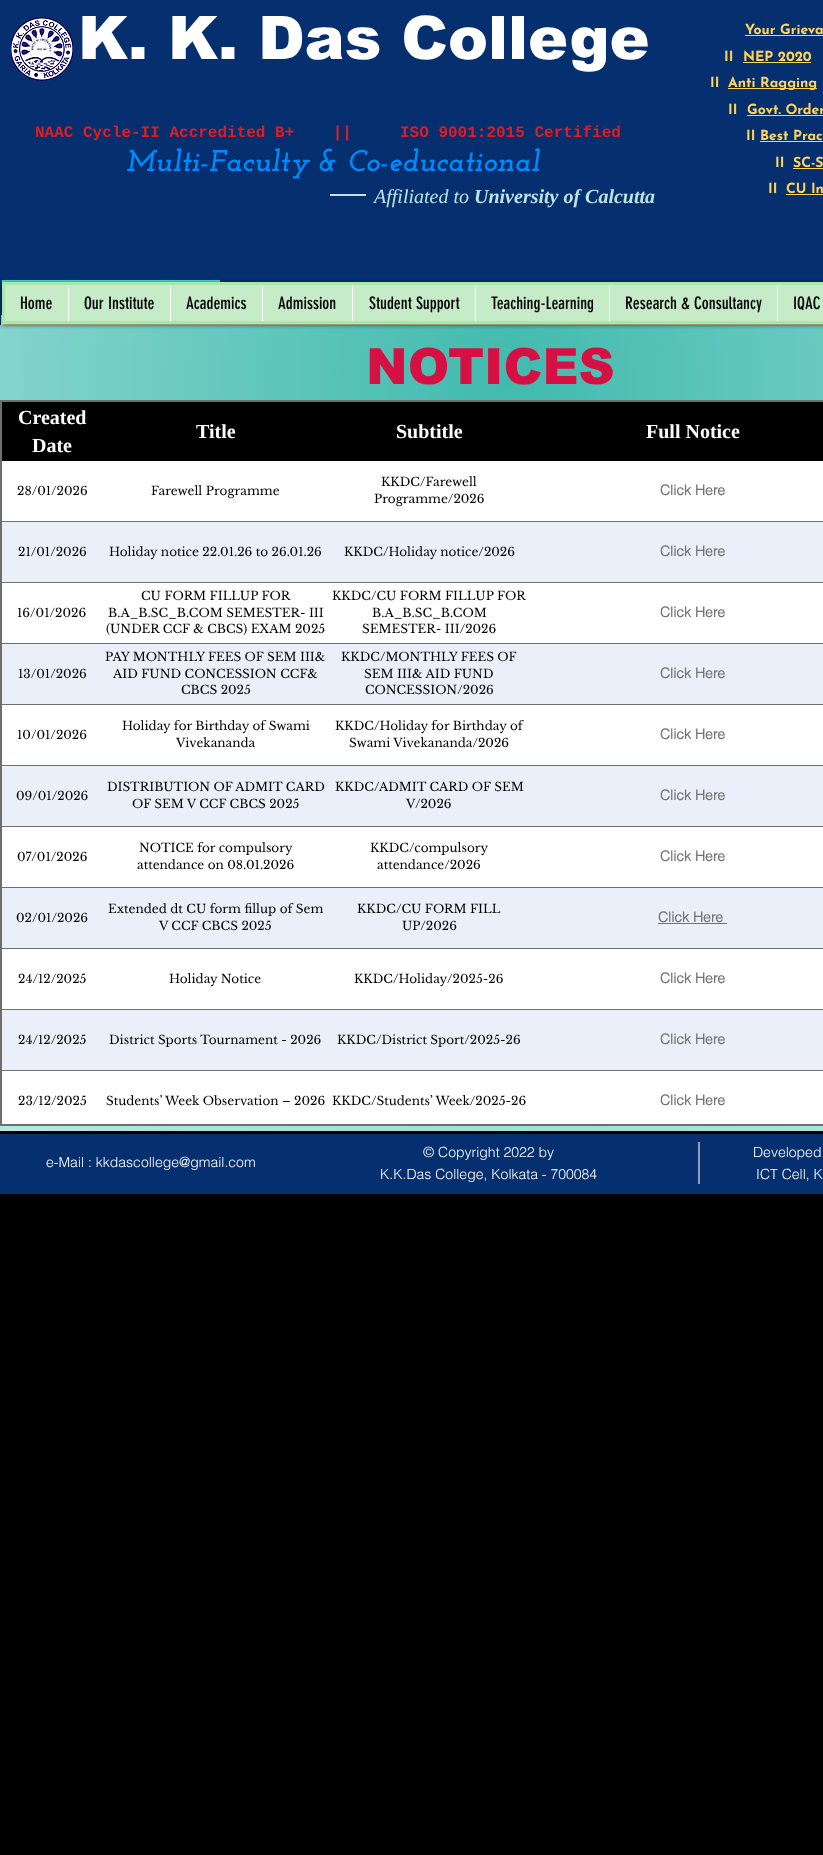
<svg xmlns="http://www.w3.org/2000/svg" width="823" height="1855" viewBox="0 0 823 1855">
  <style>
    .t1 { font: 900 60px arial; fill: #fff; }
    .t2 { font: 100 14px Josefin Sans; fill: #ffd45a; }
    .t3 { font: bold 16px Liberation Mono; fill: #e21c21; }
    .t4 { font: italic bold 30px Josefin Slab; fill: #008afc; }
    .t5 { font: italic 20px Liberation Serif; fill: #bfe3e3; }
    .t6 { font: italic bold 20px Liberation Serif; fill: #bfe3e3; }
    .t7 { font: 17px 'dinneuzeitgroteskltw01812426'; fill: #000; }
    .t8 { font: 900 50px arial; fill: #d61043; }
    .t9 { font: bold 20px Liberation Serif; fill: #fff; }
    .t10 { font: 12px Libre Baskerville; fill: #000; }
    .t11 { font: bold 14px helvetica; fill: #727272; }
    .t12 { font: 300 14px helvetica; fill: #fff; }
  </style>
  <defs>
    <radialGradient id="g1" gradientUnits="userSpaceOnUse" cx="510" cy="381" r="906"><stop offset="0" stop-color="#41baae"/><stop offset="1" stop-color="#b6e8e3"/></radialGradient>
  </defs>
  <rect width="100%" height="100%" fill="#000"/>
  <rect x="0" y="0" width="823" height="325" fill="#052f6e"/>
  <image x="11" y="17" width="62" height="64" href="images/1.png"/>
  <text x="78" y="59" class="t1">K. K. Das College</text>
  <text x="745" y="34" class="t2">Your Grieva</text>
  <rect x="745" y="35" width="78" height="1" fill="#ffd45a"/>
  <text x="724" y="61" class="t2">II</text>
  <text x="743" y="61" class="t2">NEP 2020</text>
  <rect x="743" y="62" width="68" height="1" fill="#ffd45a"/>
  <text x="710" y="87" class="t2">II</text>
  <rect x="728" y="88" width="89" height="1" fill="#ffd45a"/>
  <text x="728" y="87" class="t2">Anti Ragging</text>
  <text x="728" y="114" class="t2">II</text>
  <text x="747" y="114" class="t2">Govt. Order</text>
  <rect x="747" y="115" width="76" height="1" fill="#ffd45a"/>
  <text x="746" y="140" class="t2">II Best Prac</text>
  <rect x="760" y="141" width="63" height="1" fill="#ffd45a"/>
  <text x="775" y="167" class="t2">II</text>
  <text x="793" y="167" class="t2">SC-S</text>
  <rect x="793" y="168" width="30" height="1" fill="#ffd45a"/>
  <text x="768" y="193" class="t2">II</text>
  <text x="786" y="193" class="t2">CU In</text>
  <rect x="786" y="194" width="37" height="1" fill="#ffd45a"/>
  <text x="35" y="137" class="t3" xml:space="preserve">NAAC Cycle-II Accredited B+    ||</text>
  <text x="400" y="137" class="t3">ISO 9001:2015 Certified</text>
  <text x="126" y="171" class="t4">Multi-Faculty &amp; Co-educational</text>
  <rect x="330" y="194" width="36" height="2" fill="#bfe3e3"/>
  <text x="374" y="203" class="t5">Affiliated to</text>
  <text x="474" y="203" class="t6">University of Calcutta</text>
  <rect x="2" y="280" width="218" height="2" fill="#49d6d6"/>
  <rect x="1.5" y="315.5" width="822" height="9" fill="none" stroke="#f4eab1"/>
  <rect x="0" y="325" width="823" height="806" fill="url(#g1)"/>
  <rect x="2" y="283" width="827" height="42" fill="#00000099" filter="blur(2px)"/>
  <rect x="2" y="282" width="821" height="42" fill="#a9e8ab"/>
  <rect x="5" y="285" width="818" height="36" fill="#c6ecc7"/>
  <text x="20" y="309" class="t7">Home</text>
  <rect x="68" y="285" width="1" height="36" fill="#fff"/>
  <text x="84" y="309" class="t7">Our Institute</text>
  <rect x="170" y="285" width="1" height="36" fill="#fff"/>
  <text x="186" y="309" class="t7">Academics</text>
  <rect x="262" y="285" width="1" height="36" fill="#fff"/>
  <text x="278" y="309" class="t7">Admission</text>
  <rect x="352" y="285" width="1" height="36" fill="#fff"/>
  <text x="369" y="309" class="t7">Student Support</text>
  <rect x="475" y="285" width="1" height="36" fill="#fff"/>
  <text x="491" y="309" class="t7">Teaching-Learning</text>
  <rect x="609" y="285" width="1" height="36" fill="#fff"/>
  <text x="625" y="309" class="t7">Research &amp; Consultancy</text>
  <rect x="777" y="285" width="1" height="36" fill="#fff"/>
  <text x="793" y="309" class="t7">IQAC</text>
  <text x="366" y="384" class="t8">NOTICES</text>
  <rect x="1" y="401" width="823" height="724" fill="none" stroke="#6e6e6e" stroke-width="2"/>
  <rect x="2" y="402" width="821" height="59" fill="#000"/>
  <text x="18" y="424" class="t9">Created</text>
  <text x="32" y="452" class="t9">Date</text>
  <text x="196" y="438" class="t9">Title</text>
  <text x="396" y="438" class="t9">Subtitle</text>
  <text x="646" y="438" class="t9">Full Notice</text>
  <rect x="2" y="461" width="821" height="60" fill="#fff"/>
  <rect x="2" y="521" width="821" height="1" fill="#6e6e6e"/>
  <text x="17" y="495" class="t10">28/01/2026</text>
  <text x="151" y="495" class="t10">Farewell Programme</text>
  <text x="381" y="486" class="t10">KKDC/Farewell</text>
  <text x="374" y="503" class="t10">Programme/2026</text>
  <text x="660" y="495" class="t11">Click Here</text>
  <rect x="2" y="522" width="821" height="60" fill="#ebeffa"/>
  <rect x="2" y="582" width="821" height="1" fill="#6e6e6e"/>
  <text x="18" y="556" class="t10">21/01/2026</text>
  <text x="109" y="556" class="t10">Holiday notice 22.01.26 to 26.01.26</text>
  <text x="344" y="556" class="t10">KKDC/Holiday notice/2026</text>
  <text x="660" y="556" class="t11">Click Here</text>
  <rect x="2" y="583" width="821" height="60" fill="#fff"/>
  <rect x="2" y="643" width="821" height="1" fill="#6e6e6e"/>
  <text x="17" y="617" class="t10">16/01/2026</text>
  <text x="141" y="600" class="t10">CU FORM FILLUP FOR</text>
  <text x="108" y="617" class="t10">B.A_B.SC_B.COM SEMESTER- III</text>
  <text x="106" y="633" class="t10">(UNDER CCF &amp; CBCS) EXAM 2025</text>
  <text x="332" y="600" class="t10">KKDC/CU FORM FILLUP FOR</text>
  <text x="372" y="617" class="t10">B.A_B.SC_B.COM</text>
  <text x="362" y="633" class="t10">SEMESTER- III/2026</text>
  <text x="660" y="617" class="t11">Click Here</text>
  <rect x="2" y="644" width="821" height="60" fill="#ebeffa"/>
  <rect x="2" y="704" width="821" height="1" fill="#6e6e6e"/>
  <text x="18" y="678" class="t10">13/01/2026</text>
  <text x="105" y="661" class="t10">PAY MONTHLY FEES OF SEM III&amp;</text>
  <text x="113" y="678" class="t10">AID FUND CONCESSION CCF&amp;</text>
  <text x="181" y="694" class="t10">CBCS 2025</text>
  <text x="341" y="661" class="t10">KKDC/MONTHLY FEES OF</text>
  <text x="364" y="678" class="t10">SEM III&amp; AID FUND</text>
  <text x="365" y="694" class="t10">CONCESSION/2026</text>
  <text x="660" y="678" class="t11">Click Here</text>
  <rect x="2" y="705" width="821" height="60" fill="#fff"/>
  <rect x="2" y="765" width="821" height="1" fill="#6e6e6e"/>
  <text x="17" y="739" class="t10">10/01/2026</text>
  <text x="122" y="730" class="t10">Holiday for Birthday of Swami</text>
  <text x="176" y="747" class="t10">Vivekananda</text>
  <text x="335" y="730" class="t10">KKDC/Holiday for Birthday of</text>
  <text x="349" y="747" class="t10">Swami Vivekananda/2026</text>
  <text x="660" y="739" class="t11">Click Here</text>
  <rect x="2" y="766" width="821" height="60" fill="#ebeffa"/>
  <rect x="2" y="826" width="821" height="1" fill="#6e6e6e"/>
  <text x="16" y="800" class="t10">09/01/2026</text>
  <text x="107" y="791" class="t10">DISTRIBUTION OF ADMIT CARD</text>
  <text x="132" y="808" class="t10">OF SEM V CCF CBCS 2025</text>
  <text x="335" y="791" class="t10">KKDC/ADMIT CARD OF SEM</text>
  <text x="406" y="808" class="t10">V/2026</text>
  <text x="660" y="800" class="t11">Click Here</text>
  <rect x="2" y="827" width="821" height="60" fill="#fff"/>
  <rect x="2" y="887" width="821" height="1" fill="#6e6e6e"/>
  <text x="17" y="861" class="t10">07/01/2026</text>
  <text x="139" y="852" class="t10">NOTICE for compulsory</text>
  <text x="137" y="869" class="t10">attendance on 08.01.2026</text>
  <text x="370" y="852" class="t10">KKDC/compulsory</text>
  <text x="377" y="869" class="t10">attendance/2026</text>
  <text x="660" y="861" class="t11">Click Here</text>
  <rect x="2" y="888" width="821" height="60" fill="#ebeffa"/>
  <rect x="2" y="948" width="821" height="1" fill="#6e6e6e"/>
  <text x="16" y="922" class="t10">02/01/2026</text>
  <text x="108" y="913" class="t10">Extended dt CU form fillup of Sem</text>
  <text x="159" y="930" class="t10">V CCF CBCS 2025</text>
  <text x="357" y="913" class="t10">KKDC/CU FORM FILL</text>
  <text x="402" y="930" class="t10">UP/2026</text>
  <text x="658" y="922" class="t11">Click Here</text>
  <rect x="658" y="923" width="69" height="1" fill="#727272"/>
  <rect x="2" y="949" width="821" height="60" fill="#fff"/>
  <rect x="2" y="1009" width="821" height="1" fill="#6e6e6e"/>
  <text x="18" y="983" class="t10">24/12/2025</text>
  <text x="169" y="983" class="t10">Holiday Notice</text>
  <text x="354" y="983" class="t10">KKDC/Holiday/2025-26</text>
  <text x="660" y="983" class="t11">Click Here</text>
  <rect x="2" y="1010" width="821" height="60" fill="#ebeffa"/>
  <rect x="2" y="1070" width="821" height="1" fill="#6e6e6e"/>
  <text x="18" y="1044" class="t10">24/12/2025</text>
  <text x="109" y="1044" class="t10">District Sports Tournament - 2026</text>
  <text x="337" y="1044" class="t10">KKDC/District Sport/2025-26</text>
  <text x="660" y="1044" class="t11">Click Here</text>
  <rect x="2" y="1071" width="821" height="53" fill="#fff"/>
  <text x="18" y="1105" class="t10">23/12/2025</text>
  <text x="106" y="1105" class="t10">Students’ Week Observation – 2026</text>
  <text x="332" y="1105" class="t10">KKDC/Students’ Week/2025-26</text>
  <text x="660" y="1105" class="t11">Click Here</text>
  <rect x="0" y="1134" width="823" height="60" fill="#052f6e"/>
  <text x="46" y="1167" class="t12">e-Mail : kkdascollege@gmail.com</text>
  <text x="423" y="1157" class="t12">© Copyright 2022 by</text>
  <text x="380" y="1179" class="t12">K.K.Das College, Kolkata - 700084</text>
  <rect x="698" y="1142" width="2" height="42" fill="#959cb2"/>
  <text x="753" y="1157" class="t12">Developed</text>
  <text x="756" y="1179" class="t12">ICT Cell, K</text>
</svg>
